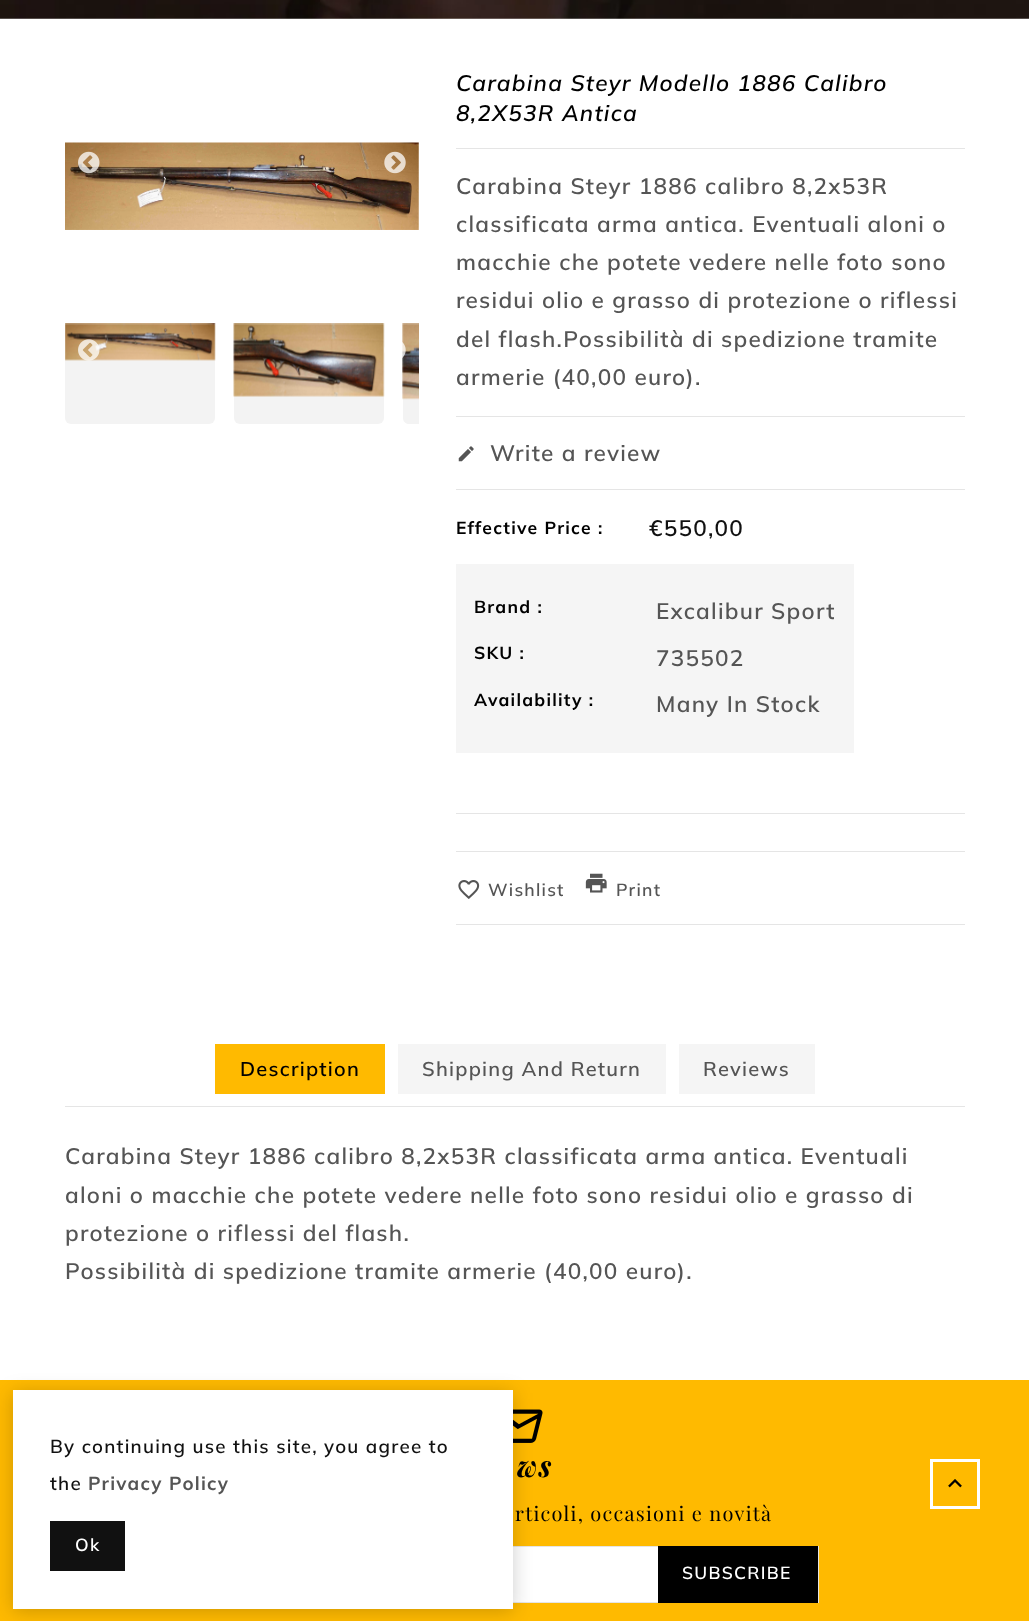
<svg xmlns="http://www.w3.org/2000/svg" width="1029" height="1621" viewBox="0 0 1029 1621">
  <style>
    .t1 { font: italic 600 22.5px Mulish; letter-spacing: 1.25px; fill: #000; }
    .t2 { font: 600 22.5px Mulish; letter-spacing: 1.25px; fill: #555; }
    .t3 { font: bold 17.5px Mulish; letter-spacing: 1.25px; fill: #000; }
    .t4 { font: 600 22.5px Mulish; letter-spacing: 1.25px; fill: #111; }
    .t5 { font: 600 17.5px Mulish; letter-spacing: 1.25px; fill: #555; }
    .t6 { font: 600 20px Mulish; letter-spacing: 1.25px; fill: #000; }
    .t7 { font: 600 20px Mulish; letter-spacing: 1.25px; fill: #555; }
    .t8 { font: 600 18.75px Mulish; letter-spacing: 1.25px; fill: #111; }
    .t9 { font: bold 18.75px Mulish; letter-spacing: 1.25px; fill: #555; }
    .t10 { font: 600 17.5px Mulish; letter-spacing: 1.25px; fill: #fff; }
    .t11 { font: italic bold 30px Playfair Display; letter-spacing: 1.25px; fill: #000; }
    .t12 { font: 20px Playfair Display; letter-spacing: 1.25px; fill: #000; }
  </style>
  <rect width="100%" height="100%" fill="#fff"/>
  <image x="0" y="0" width="1029" height="19" href="images/1.png"/>
  <image x="65" y="142" width="354" height="88" href="images/2.png"/>
  <image x="78" y="151" width="22" height="23" href="images/3.png"/>
  <image x="384" y="151" width="22" height="23" href="images/4.png"/>
  <rect x="65" y="324" width="150" height="100" rx="6" fill="#f3f3f3"/>
  <image x="65" y="323" width="151" height="38" href="images/5.png"/>
  <rect x="234" y="324" width="150" height="100" rx="6" fill="#f3f3f3"/>
  <image x="233" y="323" width="152" height="74" href="images/6.png"/>
  <path d="M409 324H419V424H409C405.5 424 403 421.5 403 418V330C403 326.5 405.5 324 409 324Z" fill="#f3f3f3"/>
  <image x="402" y="323" width="17" height="77" href="images/7.png"/>
  <image x="78" y="339" width="22" height="22" href="images/8.png"/>
  <image x="384" y="342" width="22" height="16" href="images/9.png"/>
  <text x="456" y="91" class="t1">Carabina Steyr Modello 1886 Calibro</text>
  <text x="456" y="121" class="t1">8,2X53R Antica</text>
  <rect x="456" y="148" width="509" height="1" fill="#e5e5e5"/>
  <text x="456" y="194" class="t2">Carabina Steyr 1886 calibro 8,2x53R</text>
  <text x="456" y="232" class="t2">classificata arma antica. Eventuali aloni o</text>
  <text x="456" y="270" class="t2">macchie che potete vedere nelle foto sono</text>
  <text x="456" y="308" class="t2">residui olio e grasso di protezione o riflessi</text>
  <text x="456" y="347" class="t2">del flash.Possibilità di spedizione tramite</text>
  <text x="456" y="385" class="t2">armerie (40,00 euro).</text>
  <rect x="456" y="416" width="509" height="1" fill="#e5e5e5"/>
  <image x="458" y="446" width="16" height="16" href="images/10.png"/>
  <text x="490" y="461" class="t2">Write a review</text>
  <rect x="456" y="489" width="509" height="1" fill="#e5e5e5"/>
  <text x="456" y="534" class="t3">Effective Price :</text>
  <text x="649" y="536" class="t4">€550,00</text>
  <rect x="456" y="564" width="398" height="189" fill="#f5f5f5"/>
  <text x="474" y="613" class="t3">Brand :</text>
  <text x="656" y="619" class="t2">Excalibur Sport</text>
  <text x="474" y="659" class="t3">SKU :</text>
  <text x="656" y="666" class="t2">735502</text>
  <text x="474" y="706" class="t3">Availability :</text>
  <text x="656" y="712" class="t2">Many In Stock</text>
  <rect x="456" y="813" width="509" height="1" fill="#e5e5e5"/>
  <rect x="456" y="851" width="509" height="1" fill="#e5e5e5"/>
  <image x="458" y="880" width="22" height="19" href="images/11.png"/>
  <text x="488" y="896" class="t5">Wishlist</text>
  <image x="585" y="873" width="22" height="20" href="images/12.png"/>
  <text x="616" y="896" class="t5">Print</text>
  <rect x="456" y="924" width="509" height="1" fill="#e5e5e5"/>
  <rect x="65" y="1106" width="900" height="1" fill="#e5e5e5"/>
  <rect x="215" y="1044" width="170" height="50" fill="#ffba00"/>
  <text x="240" y="1076" class="t6">Description</text>
  <rect x="398" y="1044" width="268" height="50" fill="#f5f5f5"/>
  <text x="422" y="1076" class="t7">Shipping And Return</text>
  <rect x="679" y="1044" width="136" height="50" fill="#f5f5f5"/>
  <text x="703" y="1076" class="t7">Reviews</text>
  <text x="65" y="1164" class="t2">Carabina Steyr 1886 calibro 8,2x53R classificata arma antica. Eventuali</text>
  <text x="65" y="1203" class="t2">aloni o macchie che potete vedere nelle foto sono residui olio e grasso di</text>
  <text x="65" y="1241" class="t2">protezione o riflessi del flash.</text>
  <text x="65" y="1279" class="t2">Possibilità di spedizione tramite armerie (40,00 euro).</text>
  <rect x="0" y="1380" width="1029" height="241" fill="#ffba00"/>
  <image x="513" y="1409" width="30" height="34" href="images/13.png"/>
  <rect x="513" y="1547" width="145" height="55" fill="#fff"/>
  <rect x="206.5" y="1546.5" width="612" height="56" fill="none" stroke="#e5e5e5"/>
  <rect x="13" y="1393" width="500" height="218" fill="#00000033" filter="blur(9.5px)"/>
  <rect x="13" y="1390" width="500" height="219" fill="#fff"/>
  <text x="50" y="1453" class="t8">By continuing use this site, you agree to</text>
  <text x="50" y="1490" class="t8">the</text>
  <text x="88" y="1490" class="t9">Privacy Policy</text>
  <rect x="50" y="1521" width="75" height="50" fill="#111"/>
  <text x="75" y="1551" class="t10">Ok</text>
  <text x="517" y="1477" class="t11">ws</text>
  <text x="515" y="1521" class="t12">rticoli, occasioni e novità</text>
  <rect x="658" y="1546" width="160" height="57" fill="#000"/>
  <text x="682" y="1579" class="t10">SUBSCRIBE</text>
  <rect x="931.5" y="1460.5" width="47" height="47" fill="none" stroke="#fff" stroke-width="3"/>
  <image x="948" y="1479" width="14" height="9" href="images/14.png"/>
</svg>
